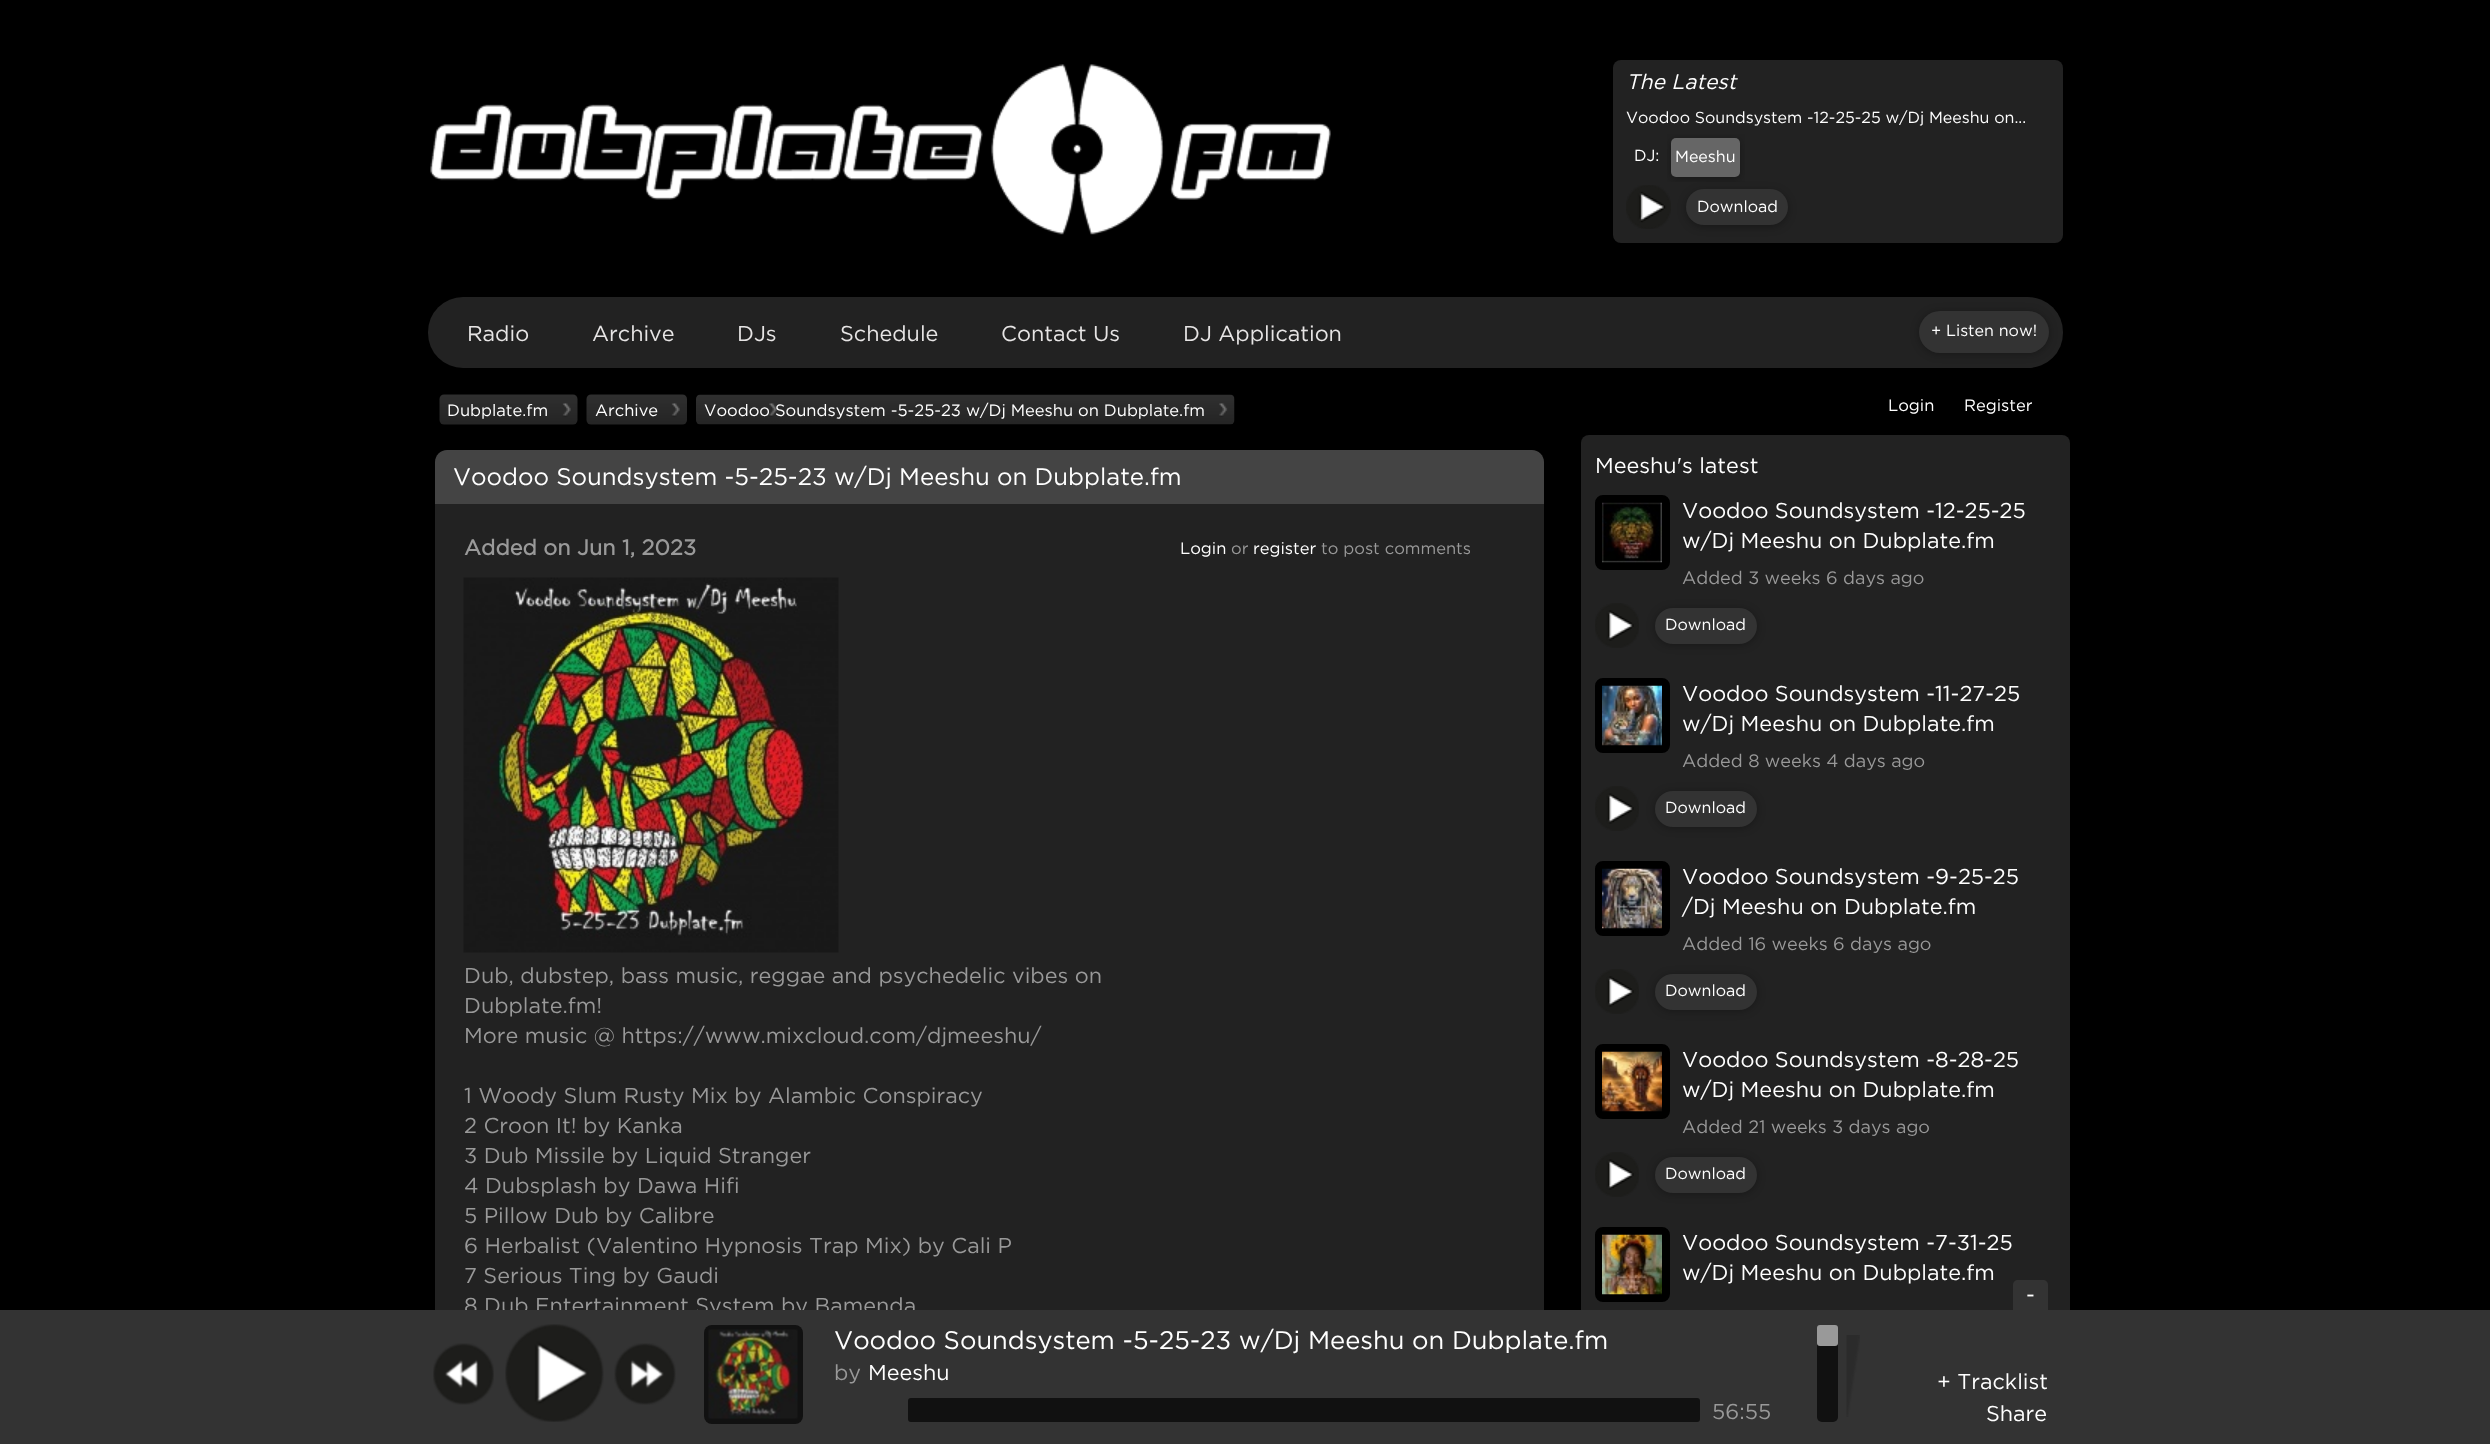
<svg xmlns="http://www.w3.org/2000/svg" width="2490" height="1444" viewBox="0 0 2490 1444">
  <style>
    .t1 { font: italic 21px Gotham; fill: #fff; }
    .t2 { font: 16px Gotham; fill: #fff; }
    .t3 { font: 21.6px Gotham; fill: #e7e5e5; }
    .t4 { font: 16.5px Gotham; fill: #fff; }
    .t5 { font: 24px Gotham; fill: #fff; }
    .t6 { font: bold 21.6px Gotham; fill: #999; }
    .t7 { font: 21.6px Gotham; fill: #999; }
    .t8 { font: 16.5px Gotham; fill: #999; }
    .t9 { font: 21.6px Gotham; fill: #fff; }
    .t10 { font: 18px Gotham; fill: #999; }
    .t11 { font: 25.5px Gotham; fill: #fff; }
  </style>
  <defs>
    <clipPath id="clip1"><rect x="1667" y="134" width="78" height="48"/></clipPath>
  </defs>
  <rect width="100%" height="100%" fill="#000"/>
  <image x="430" y="64" width="901" height="171" href="images/1.png"/>
  <rect x="1613" y="60" width="450" height="183" rx="8" fill="#222"/>
  <text x="1626" y="89" class="t1">The Latest</text>
  <text x="1626" y="123" class="t2">Voodoo Soundsystem -12-25-25 w/Dj Meeshu on...</text>
  <text x="1634" y="161" class="t2">DJ:</text>
  <g clip-path="url(#clip1)">
    <rect x="1671" y="140" width="69" height="39" rx="5" fill="#0000004d" filter="blur(4px)"/>
  </g>
  <rect x="1671" y="138" width="69" height="39" rx="5" fill="#666"/>
  <text x="1675" y="162" class="t2">Meeshu</text>
  <image x="1626" y="185" width="45" height="44" href="images/2.png"/>
  <rect x="1686" y="191" width="102" height="36" rx="18" fill="#0000004d" filter="blur(4px)"/>
  <rect x="1686" y="189" width="102" height="36" rx="18" fill="#333"/>
  <text x="1697" y="212" class="t2">Download</text>
  <rect x="428" y="297" width="1635" height="71" rx="35" fill="#222"/>
  <rect x="1919" y="312" width="130" height="42" rx="21" fill="#0000004d" filter="blur(4px)"/>
  <rect x="1919" y="311" width="130" height="42" rx="21" fill="#333"/>
  <text x="1931" y="336" class="t2">+ Listen now!</text>
  <text x="467" y="341" class="t3">Radio</text>
  <text x="592" y="341" class="t3">Archive</text>
  <text x="737" y="341" class="t3">DJs</text>
  <text x="840" y="341" class="t3">Schedule</text>
  <text x="1001" y="341" class="t3">Contact Us</text>
  <text x="1183" y="341" class="t3">DJ Application</text>
  <image x="439" y="394" width="139" height="31" href="images/3.png"/>
  <text x="447" y="416" class="t4">Dubplate.fm</text>
  <image x="586" y="394" width="101" height="31" href="images/4.png"/>
  <text x="595" y="416" class="t4">Archive</text>
  <image x="696" y="394" width="539" height="31" href="images/5.png"/>
  <text x="704" y="416" class="t4">Voodoo Soundsystem -5-25-23 w/Dj Meeshu on Dubplate.fm</text>
  <text x="1888" y="411" class="t4">Login</text>
  <text x="1964" y="411" class="t4">Register</text>
  <path d="M447 450H1532C1538.5 450 1544 455.5 1544 462V504H435V462C435 455.5 440.5 450 447 450Z" fill="#444"/>
  <text x="453" y="485" class="t5">Voodoo Soundsystem -5-25-23 w/Dj Meeshu on Dubplate.fm</text>
  <rect x="435" y="504" width="1109" height="806" fill="#222"/>
  <text x="464" y="555" class="t6">Added on Jun 1, 2023</text>
  <image x="463" y="577" width="376" height="376" href="images/6.png"/>
  <text x="464" y="983" class="t7">Dub, dubstep, bass music, reggae and psychedelic vibes on</text>
  <text x="464" y="1013" class="t7">Dubplate.fm!</text>
  <text x="464" y="1043" class="t7">More music @ https://www.mixcloud.com/djmeeshu/</text>
  <text x="464" y="1103" class="t7">1 Woody Slum Rusty Mix by Alambic Conspiracy</text>
  <text x="464" y="1133" class="t7">2 Croon It! by Kanka</text>
  <text x="464" y="1163" class="t7">3 Dub Missile by Liquid Stranger</text>
  <text x="464" y="1193" class="t7">4 Dubsplash by Dawa Hifi</text>
  <text x="464" y="1223" class="t7">5 Pillow Dub by Calibre</text>
  <text x="464" y="1253" class="t7">6 Herbalist (Valentino Hypnosis Trap Mix) by Cali P</text>
  <text x="464" y="1283" class="t7">7 Serious Ting by Gaudi</text>
  <text x="464" y="1313" class="t7">8 Dub Entertainment System by Bamenda</text>
  <text x="1180" y="554" class="t4">Login</text>
  <text x="1231" y="554" class="t8">or</text>
  <text x="1253" y="554" class="t4">register</text>
  <text x="1321" y="554" class="t8">to post comments</text>
  <rect x="1581" y="435" width="489" height="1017" rx="8" fill="#222"/>
  <text x="1595" y="473" class="t9">Meeshu's latest</text>
  <rect x="1599" y="499" width="67" height="67" rx="4" fill="none" stroke="#000" stroke-width="8"/>
  <image x="1602" y="502" width="60" height="61" href="images/7.png"/>
  <text x="1682" y="518" class="t9">Voodoo Soundsystem -12-25-25</text>
  <text x="1682" y="548" class="t9">w/Dj Meeshu on Dubplate.fm</text>
  <text x="1682" y="584" class="t10">Added 3 weeks 6 days ago</text>
  <image x="1595" y="603" width="44" height="45" href="images/8.png"/>
  <rect x="1655" y="609" width="102" height="36" rx="18" fill="#0000004d" filter="blur(4px)"/>
  <rect x="1655" y="608" width="102" height="36" rx="18" fill="#333"/>
  <text x="1665" y="630" class="t2">Download</text>
  <rect x="1599" y="682" width="67" height="67" rx="4" fill="none" stroke="#000" stroke-width="8"/>
  <image x="1602" y="685" width="60" height="61" href="images/9.png"/>
  <text x="1682" y="701" class="t9">Voodoo Soundsystem -11-27-25</text>
  <text x="1682" y="731" class="t9">w/Dj Meeshu on Dubplate.fm</text>
  <text x="1682" y="767" class="t10">Added 8 weeks 4 days ago</text>
  <image x="1595" y="786" width="44" height="45" href="images/8.png"/>
  <rect x="1655" y="792" width="102" height="36" rx="18" fill="#0000004d" filter="blur(4px)"/>
  <rect x="1655" y="791" width="102" height="36" rx="18" fill="#333"/>
  <text x="1665" y="813" class="t2">Download</text>
  <rect x="1599" y="865" width="67" height="67" rx="4" fill="none" stroke="#000" stroke-width="8"/>
  <image x="1602" y="868" width="60" height="61" href="images/10.png"/>
  <text x="1682" y="884" class="t9">Voodoo Soundsystem -9-25-25</text>
  <text x="1682" y="914" class="t9">/Dj Meeshu on Dubplate.fm</text>
  <text x="1682" y="950" class="t10">Added 16 weeks 6 days ago</text>
  <image x="1595" y="969" width="44" height="45" href="images/8.png"/>
  <rect x="1655" y="975" width="102" height="36" rx="18" fill="#0000004d" filter="blur(4px)"/>
  <rect x="1655" y="974" width="102" height="36" rx="18" fill="#333"/>
  <text x="1665" y="996" class="t2">Download</text>
  <rect x="1599" y="1048" width="67" height="67" rx="4" fill="none" stroke="#000" stroke-width="8"/>
  <image x="1602" y="1051" width="60" height="61" href="images/11.png"/>
  <text x="1682" y="1067" class="t9">Voodoo Soundsystem -8-28-25</text>
  <text x="1682" y="1097" class="t9">w/Dj Meeshu on Dubplate.fm</text>
  <text x="1682" y="1133" class="t10">Added 21 weeks 3 days ago</text>
  <image x="1595" y="1152" width="44" height="45" href="images/8.png"/>
  <rect x="1655" y="1158" width="102" height="36" rx="18" fill="#0000004d" filter="blur(4px)"/>
  <rect x="1655" y="1157" width="102" height="36" rx="18" fill="#333"/>
  <text x="1665" y="1179" class="t2">Download</text>
  <rect x="1599" y="1231" width="67" height="67" rx="4" fill="none" stroke="#000" stroke-width="8"/>
  <image x="1602" y="1234" width="60" height="61" href="images/12.png"/>
  <text x="1682" y="1250" class="t9">Voodoo Soundsystem -7-31-25</text>
  <text x="1682" y="1280" class="t9">w/Dj Meeshu on Dubplate.fm</text>
  <rect x="0" y="1310" width="2490" height="134" fill="#333"/>
  <path d="M2018 1280H2043C2046 1280 2048 1282 2048 1285V1310H2013V1285C2013 1282 2015 1280 2018 1280Z" fill="#333"/>
  <text x="2026" y="1302" class="t9">-</text>
  <image x="433" y="1343" width="61" height="62" href="images/13.png"/>
  <image x="505" y="1324" width="99" height="98" href="images/14.png"/>
  <image x="614" y="1343" width="62" height="62" href="images/15.png"/>
  <rect x="704" y="1325" width="99" height="99" rx="8" fill="#111"/>
  <image x="708" y="1329" width="90" height="90" href="images/16.png"/>
  <text x="834" y="1349" class="t11">Voodoo Soundsystem -5-25-23 w/Dj Meeshu on Dubplate.fm</text>
  <text x="834" y="1380" class="t7">by</text>
  <text x="868" y="1380" class="t9">Meeshu</text>
  <rect x="908" y="1398" width="792" height="24" rx="3" fill="#111"/>
  <text x="1712" y="1419" class="t7">56:55</text>
  <rect x="1817" y="1325" width="21" height="97" rx="5" fill="#111"/>
  <rect x="1817" y="1325" width="21" height="21" rx="3" fill="#999"/>
  <image x="1846" y="1335" width="14" height="82" href="images/17.png"/>
  <text x="1937" y="1389" class="t9">+ Tracklist</text>
  <text x="1986" y="1421" class="t9">Share</text>
</svg>
